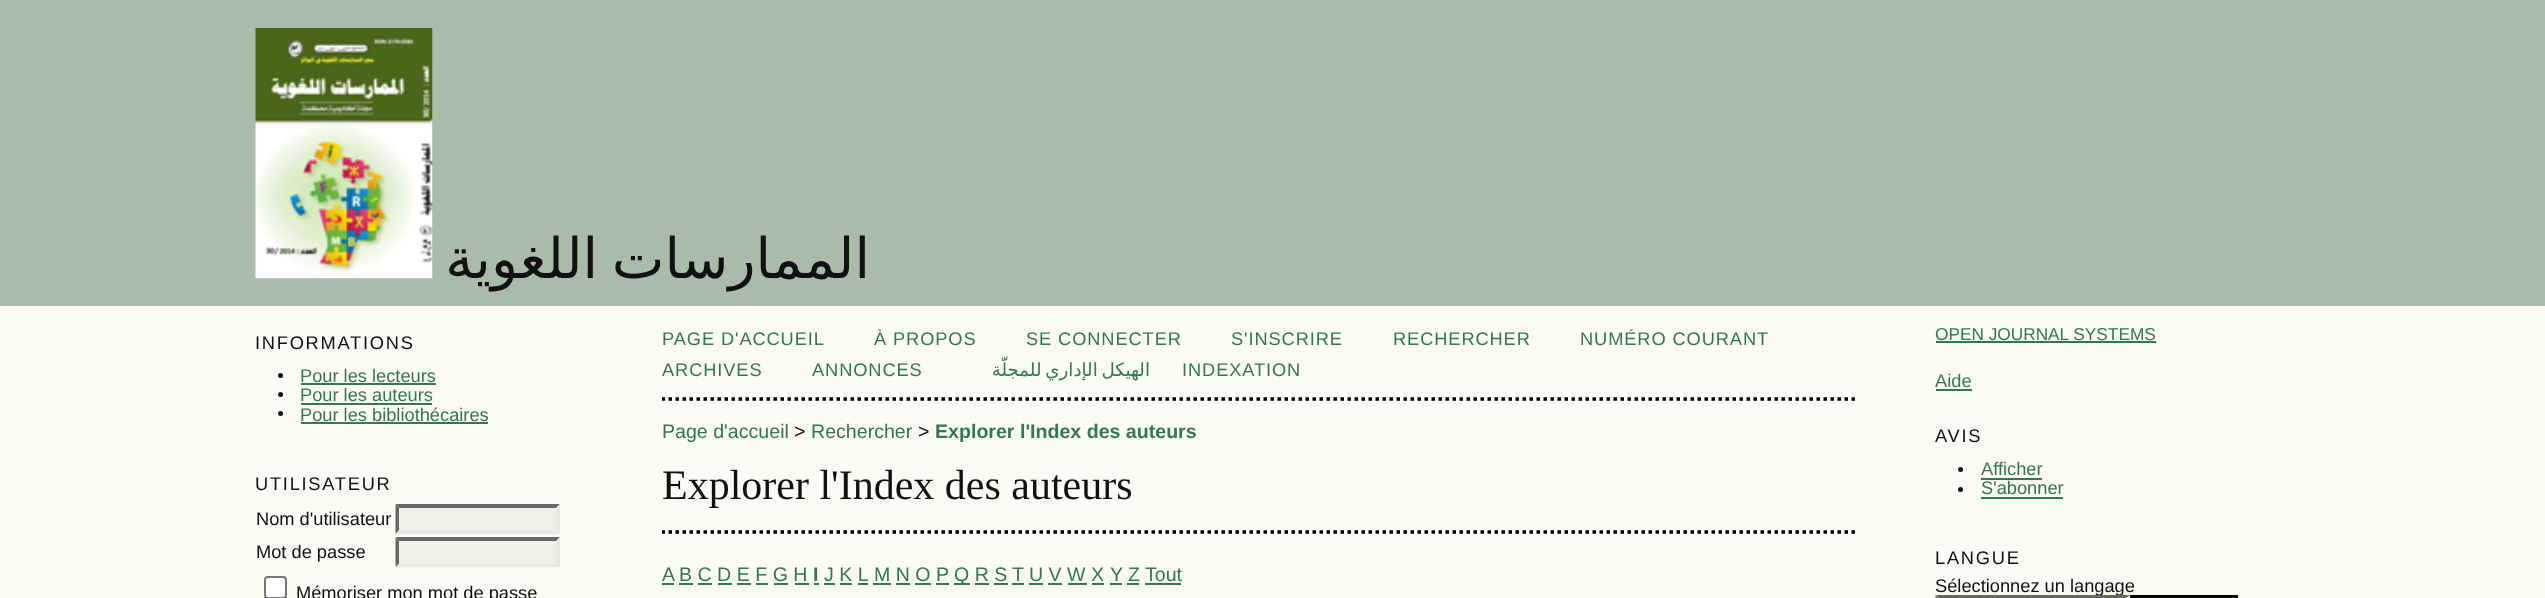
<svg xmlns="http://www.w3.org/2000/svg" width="2545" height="598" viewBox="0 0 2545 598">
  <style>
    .t1 { font: 56px DejaVu Sans; direction: rtl; fill: #111; }
    .t2 { font: 18.25px Liberation Sans; letter-spacing: 1.75px; fill: #111; }
    .t3 { font: 18.25px Liberation Sans; fill: #375; }
    .t4 { font: 18.25px Liberation Sans; fill: #111; }
    .t5 { font: 17.25px Liberation Sans; fill: #375; }
    .t6 { font: 18.25px Liberation Sans; letter-spacing: 0.9px; fill: #375; }
    .t7 { font: 18.25px DejaVu Sans; letter-spacing: 0.9px; direction: rtl; fill: #375; }
    .t8 { font: 19.6px Liberation Sans; fill: #375; }
    .t9 { font: 19.6px Liberation Sans; fill: #111; }
    .t10 { font: bold 19.6px Liberation Sans; fill: #375; }
    .t11 { font: 42px Liberation Serif; fill: #111; }
  </style>
  <defs>
    <clipPath id="clip1"><rect x="662" y="306" width="1197" height="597"/></clipPath>
  </defs>
  <rect width="100%" height="100%" fill="#fbfbf3"/>
  <rect x="0" y="0" width="2545" height="306" fill="#aba"/>
  <image x="255" y="28" width="178" height="251" href="images/1.png"/>
  <text x="870" y="278" word-spacing="-4" class="t1">الممارسات اللغوية</text>
  <text x="255" y="349" class="t2">INFORMATIONS</text>
  <circle cx="280.5" cy="375.5" r="2.5" fill="#111"/>
  <text x="300" y="382" class="t3">Pour les lecteurs</text>
  <rect x="301" y="383" width="135" height="2" fill="#375"/>
  <circle cx="280.5" cy="394.5" r="2.5" fill="#111"/>
  <text x="300" y="401" class="t3">Pour les auteurs</text>
  <rect x="301" y="403" width="131" height="2" fill="#375"/>
  <circle cx="280.5" cy="413.5" r="2.5" fill="#111"/>
  <text x="300" y="421" class="t3">Pour les bibliothécaires</text>
  <rect x="301" y="422" width="187" height="2" fill="#375"/>
  <text x="255" y="490" class="t2">UTILISATEUR</text>
  <text x="256" y="525" class="t4">Nom d'utilisateur</text>
  <rect x="396" y="504" width="164" height="30" fill="#f0f0e8"/>
  <path d="M396 504H560L556 508H399Z" fill="#666"/>
  <path d="M560 504V534L556.5 530V507.5Z" fill="#e8e8e1"/>
  <path d="M560 534H396L399 530H556Z" fill="#e8e8e1"/>
  <path d="M395.5 534V504L399 507.5V530Z" fill="#666"/>
  <text x="256" y="558" class="t4">Mot de passe</text>
  <rect x="396" y="537" width="164" height="30" fill="#f0f0e8"/>
  <path d="M396 537H560L556 541H399Z" fill="#666"/>
  <path d="M560 537V567L556.5 563.5V541Z" fill="#e8e8e1"/>
  <path d="M560 567H396L399 564H556Z" fill="#e8e8e1"/>
  <path d="M395.5 567V537L399 541V563.5Z" fill="#666"/>
  <rect x="265" y="577" width="21" height="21" rx="3" fill="#fff" stroke="#767676" stroke-width="2"/>
  <text x="296" y="599" class="t4">Mémoriser mon mot de passe</text>
  <text x="1935" y="340" class="t5">OPEN JOURNAL SYSTEMS</text>
  <rect x="1936" y="341" width="220" height="2" fill="#375"/>
  <text x="1935" y="387" class="t3">Aide</text>
  <rect x="1936" y="389" width="36" height="2" fill="#375"/>
  <text x="1935" y="442" class="t2">AVIS</text>
  <circle cx="1960.5" cy="469.5" r="2.5" fill="#111"/>
  <text x="1981" y="475" class="t3">Afficher</text>
  <rect x="1981" y="478" width="61" height="2" fill="#375"/>
  <circle cx="1960.5" cy="489.5" r="2.5" fill="#111"/>
  <text x="1981" y="494" class="t3">S'abonner</text>
  <rect x="1981" y="497" width="82" height="2" fill="#375"/>
  <text x="1935" y="564" class="t2">LANGUE</text>
  <text x="1935" y="592" class="t4">Sélectionnez un langage</text>
  <rect x="1936" y="595" width="194" height="3" fill="#f0f0e8"/>
  <path d="M1936 595H2130L2126 598H1939Z" fill="#666"/>
  <path d="M2130 595V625L2126 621V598.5Z" fill="#e8e8e1"/>
  <path d="M1935.5 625V595L1939 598.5V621Z" fill="#666"/>
  <rect x="2132" y="597" width="104" height="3" fill="none" stroke="#000" stroke-width="4"/>
  <g clip-path="url(#clip1)">
    <path d="M661.5 399H1858.5" fill="none" stroke="#000" stroke-width="3.5" stroke-dasharray="3.5 3.5"/>
  </g>
  <text x="662" y="345" class="t6">PAGE D'ACCUEIL</text>
  <text x="874" y="345" class="t6">À PROPOS</text>
  <text x="1026" y="345" class="t6">SE CONNECTER</text>
  <text x="1231" y="345" class="t6">S'INSCRIRE</text>
  <text x="1393" y="345" class="t6">RECHERCHER</text>
  <text x="1580" y="345" class="t6">NUMÉRO COURANT</text>
  <text x="662" y="376" class="t6">ARCHIVES</text>
  <text x="812" y="376" class="t6">ANNONCES</text>
  <text x="1150" y="376" word-spacing="-2" class="t7">الهيكل الإداري للمجلّة</text>
  <text x="1182" y="376" class="t6">INDEXATION</text>
  <text x="662" y="438" class="t8">Page d'accueil</text>
  <text x="794" y="438" class="t9">&gt;</text>
  <text x="811" y="438" class="t8">Rechercher</text>
  <text x="918" y="438" class="t9">&gt;</text>
  <text x="935" y="438" class="t10">Explorer l'Index des auteurs</text>
  <text x="662" y="499" class="t11">Explorer l'Index des auteurs</text>
  <g clip-path="url(#clip1)">
    <path d="M661.5 532H1858.5" fill="none" stroke="#000" stroke-width="3.5" stroke-dasharray="3.5 3.5"/>
  </g>
  <text x="662" y="581" class="t8">A</text>
  <rect x="662" y="583" width="12" height="2" fill="#375"/>
  <text x="679" y="581" class="t8">B C D E F G H</text>
  <rect x="679" y="583" width="14" height="2" fill="#375"/>
  <text x="813" y="581" class="t10">I</text>
  <rect x="814" y="583" width="5" height="2" fill="#375"/>
  <text x="824" y="581" class="t8">J K L</text>
  <rect x="824" y="583" width="11" height="2" fill="#375"/>
  <text x="874" y="581" class="t8">M N O P</text>
  <rect x="873" y="583" width="18" height="2" fill="#375"/>
  <rect x="954" y="583" width="16" height="2" fill="#375"/>
  <text x="954" y="581" class="t8">Q R S</text>
  <text x="1012" y="581" class="t8">T</text>
  <rect x="1012" y="583" width="12" height="2" fill="#375"/>
  <text x="1029" y="581" class="t8">U V W X</text>
  <rect x="1029" y="583" width="14" height="2" fill="#375"/>
  <text x="1110" y="581" class="t8">Y</text>
  <rect x="1110" y="583" width="12" height="2" fill="#375"/>
  <text x="1128" y="581" class="t8">Z</text>
  <rect x="1127" y="583" width="12" height="2" fill="#375"/>
  <text x="1145" y="581" class="t8">Tout</text>
  <rect x="1145" y="583" width="36" height="2" fill="#375"/>
  <rect x="698" y="583" width="14" height="2" fill="#375"/>
  <rect x="718" y="583" width="14" height="2" fill="#375"/>
  <rect x="737" y="583" width="14" height="2" fill="#375"/>
  <rect x="756" y="583" width="12" height="2" fill="#375"/>
  <rect x="774" y="583" width="14" height="2" fill="#375"/>
  <rect x="795" y="583" width="14" height="2" fill="#375"/>
  <rect x="840" y="583" width="12" height="2" fill="#375"/>
  <rect x="858" y="583" width="10" height="2" fill="#375"/>
  <rect x="896" y="583" width="14" height="2" fill="#375"/>
  <rect x="915" y="583" width="16" height="2" fill="#375"/>
  <rect x="936" y="583" width="13" height="2" fill="#375"/>
  <rect x="975" y="583" width="14" height="2" fill="#375"/>
  <rect x="994" y="583" width="14" height="2" fill="#375"/>
  <rect x="1048" y="583" width="14" height="2" fill="#375"/>
  <rect x="1068" y="583" width="19" height="2" fill="#375"/>
  <rect x="1092" y="583" width="12" height="2" fill="#375"/>
</svg>
